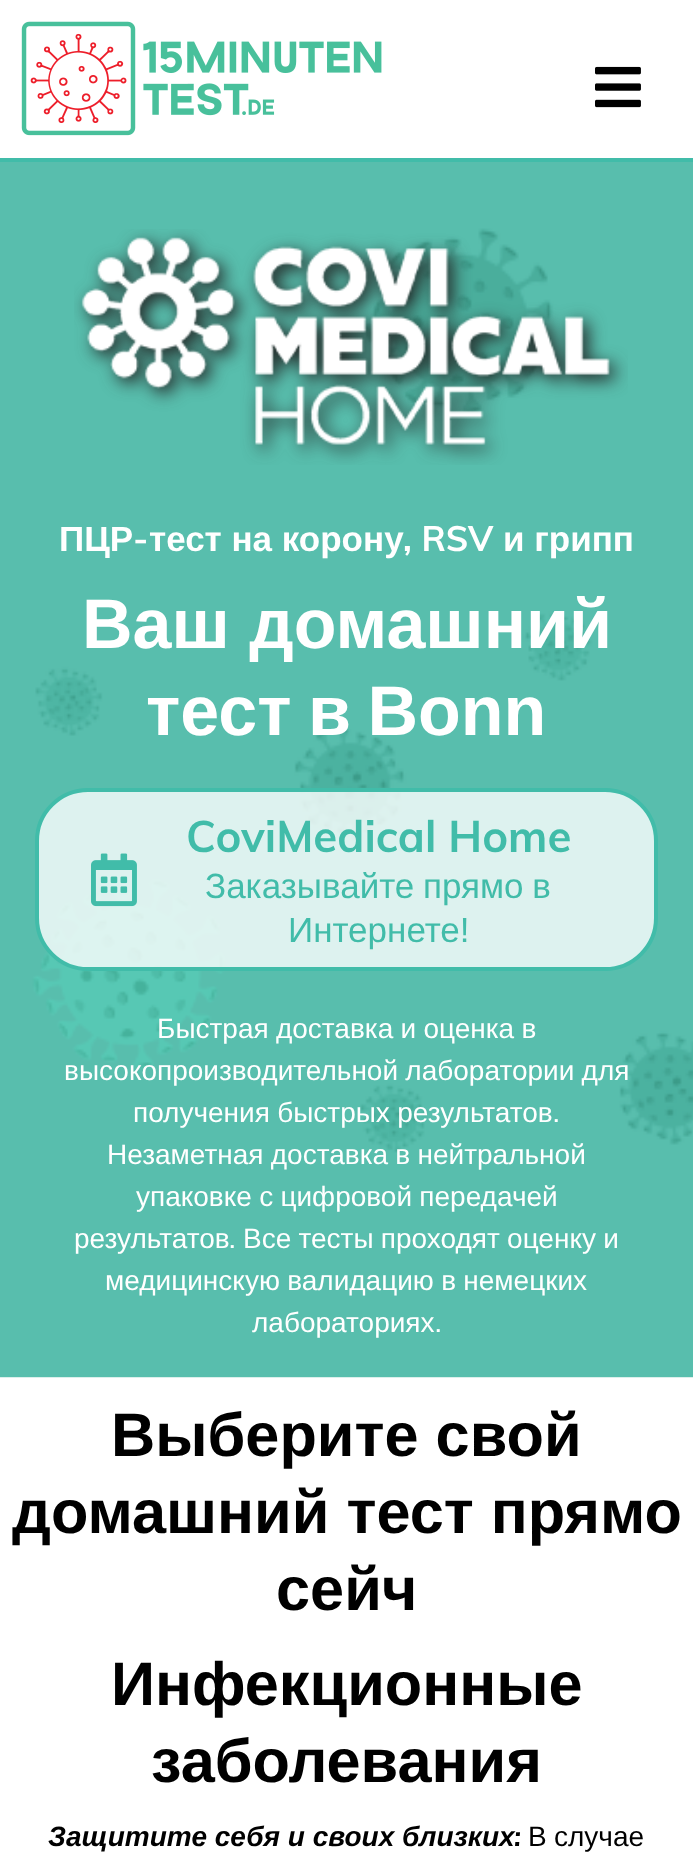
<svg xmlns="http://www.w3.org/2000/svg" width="693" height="1869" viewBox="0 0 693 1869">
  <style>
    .t1 { font: bold 35px Liberation Sans; fill: #fff; }
    .t2 { font: bold 35px Muli; fill: #fff; }
    .t3 { font: bold 70px Liberation Sans; fill: #fff; }
    .t4 { font: bold 43.75px Muli; fill: #41bca9; }
    .t5 { font: 35px Liberation Sans; fill: #41bca9; }
    .t6 { font: 28px Liberation Sans; fill: #fff; }
    .t7 { font: 28px Muli; fill: #fff; }
    .t8 { font: bold 61.25px Liberation Sans; fill: #000; }
    .t9 { font: italic bold 28px Liberation Sans; fill: #000; }
    .t10 { font: italic bold 28px Muli; fill: #000; }
    .t11 { font: 28px Liberation Sans; fill: #000; }
  </style>
  <rect width="100%" height="100%" fill="#fff"/>
  <rect x="0" y="158" width="693" height="4" fill="#41bca9"/>
  <image x="21" y="21" width="361" height="115" href="images/1.png"/>
  <image x="595" y="66" width="46" height="42" href="images/2.png"/>
  <rect x="0" y="162" width="693" height="66" fill="#58bead"/>
  <image x="0" y="228" width="693" height="1150" href="images/3.png"/>
  <image x="74" y="229" width="554" height="236" href="images/4.png"/>
  <text x="59" y="551" class="t1">ПЦР</text>
  <text x="133" y="551" class="t2">-</text>
  <text x="149" y="551" class="t1">тест на корону</text>
  <text x="403" y="551" class="t2">, RSV</text>
  <text x="503" y="551" class="t1">и грипп</text>
  <text x="82" y="648" class="t3">Ваш домашний</text>
  <text x="146" y="735" word-spacing="-3" class="t3">тест в Bonn</text>
  <rect x="37" y="790" width="619" height="179" rx="51" fill="#ffffffcc" stroke="#41bca9" stroke-width="4"/>
  <image x="91" y="853" width="46" height="54" href="images/5.png"/>
  <text x="186" y="852" class="t4">CoviMedical Home</text>
  <text x="205" y="898" word-spacing="-1" class="t5">Заказывайте прямо в</text>
  <text x="288" y="942" class="t5">Интернете!</text>
  <text x="157" y="1038" word-spacing="-0.5" class="t6">Быстрая доставка и оценка в</text>
  <text x="64" y="1080" word-spacing="-0.5" class="t6">высокопроизводительной лаборатории для</text>
  <text x="133" y="1122" word-spacing="-0.5" class="t6">получения быстрых результатов</text>
  <text x="553" y="1122" class="t7">.</text>
  <text x="107" y="1164" word-spacing="-0.5" class="t6">Незаметная доставка в нейтральной</text>
  <text x="136" y="1206" word-spacing="-0.5" class="t6">упаковке с цифровой передачей</text>
  <text x="74" y="1248" class="t6">результатов</text>
  <text x="229" y="1248" class="t7">.</text>
  <text x="243" y="1248" word-spacing="-0.5" class="t6">Все тесты проходят оценку и</text>
  <text x="105" y="1290" word-spacing="-0.5" class="t6">медицинскую валидацию в немецких</text>
  <text x="252" y="1332" class="t6">лабораториях</text>
  <text x="435" y="1332" class="t7">.</text>
  <text x="111" y="1456" class="t8">Выберите свой</text>
  <text x="12" y="1533" class="t8">домашний тест прямо</text>
  <text x="276" y="1610" class="t8">сейч</text>
  <text x="111" y="1705" class="t8">Инфекционные</text>
  <text x="151" y="1782" class="t8">заболевания</text>
  <text x="48" y="1846" class="t9">Защитите себя и своих близких</text>
  <text x="514" y="1846" class="t10">:</text>
  <text x="528" y="1846" word-spacing="-0.5" class="t11">В случае</text>
</svg>
